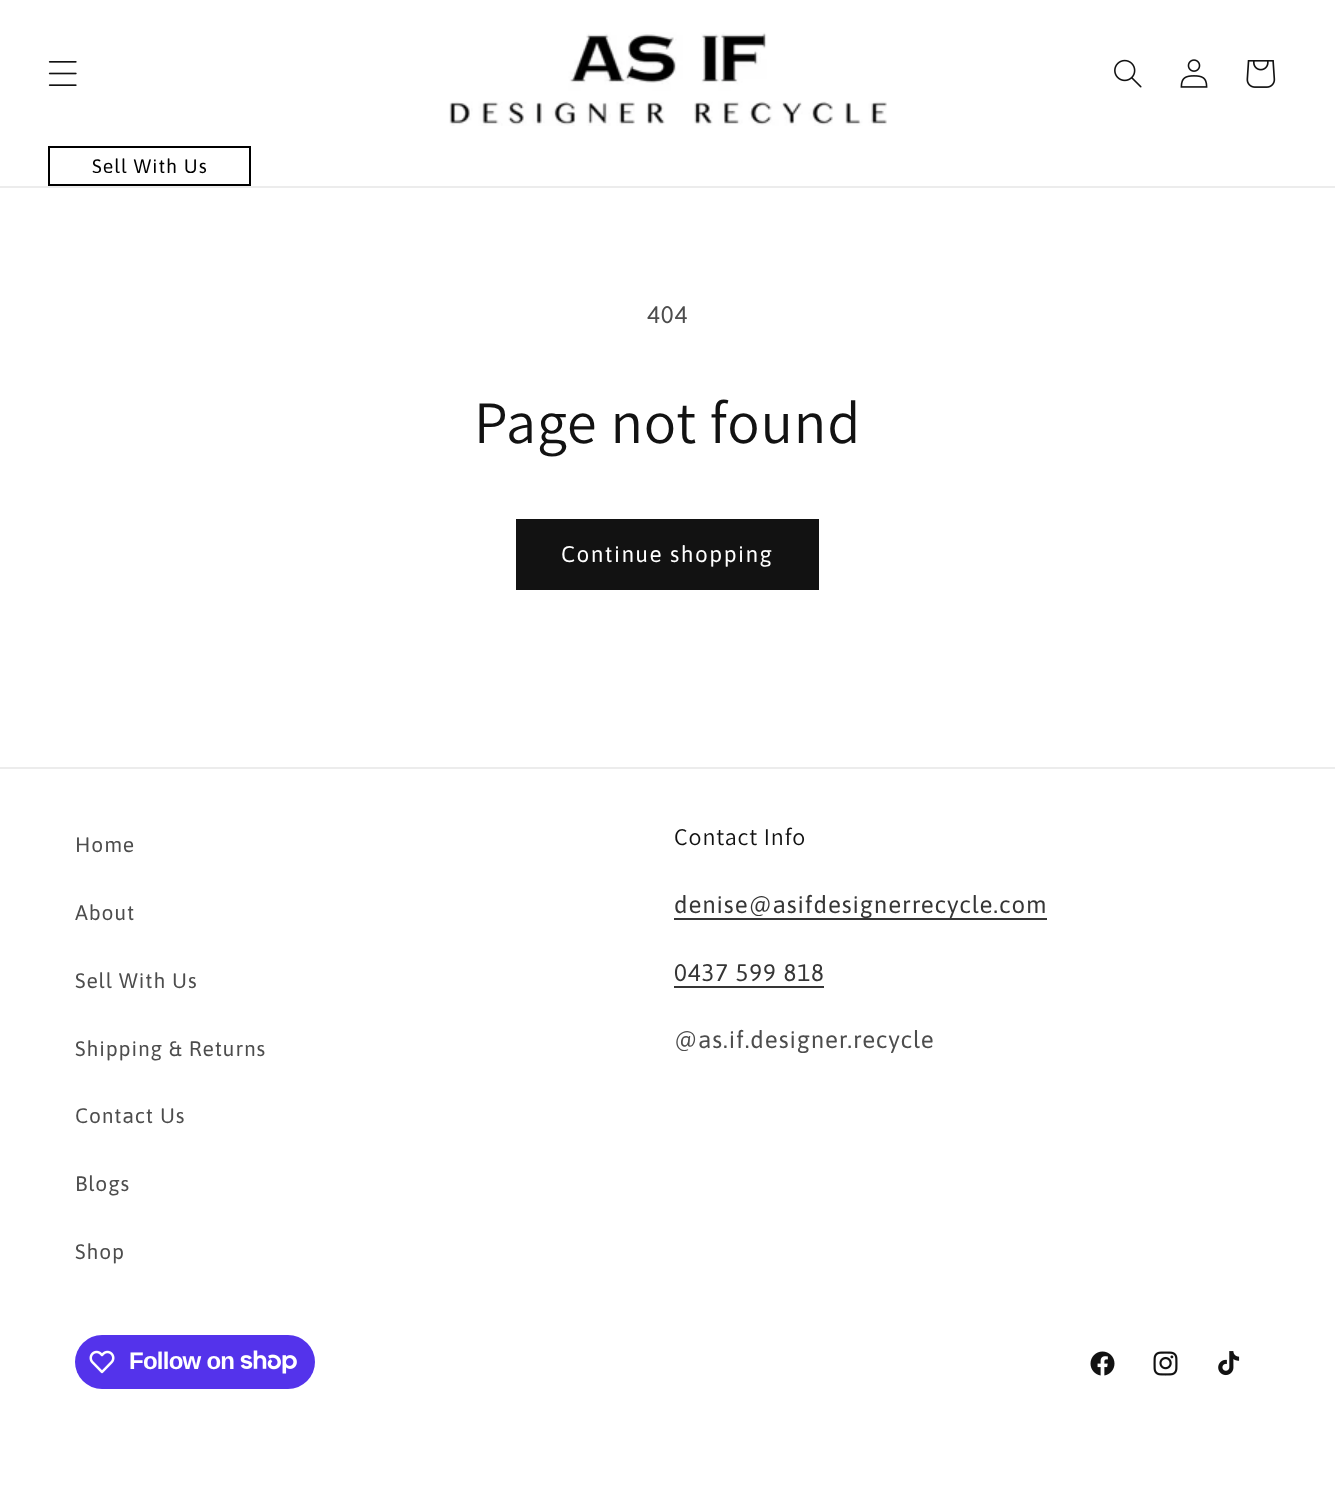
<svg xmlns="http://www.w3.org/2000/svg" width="1335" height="1500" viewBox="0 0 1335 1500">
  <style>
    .t1 { font: 19.5px Asap; letter-spacing: 1px; fill: #000; }
    .t2 { font: 24px Asap; letter-spacing: 0.9px; fill: #4d4d4d; }
    .t3 { font: 60px Assistant; letter-spacing: 0.9px; fill: #121212; }
    .t4 { font: 22.5px Asap; letter-spacing: 1.5px; fill: #fff; }
    .t5 { font: 21px Asap; letter-spacing: 0.9px; fill: #4d4d4d; }
    .t6 { font: 24px Assistant; letter-spacing: 0.9px; fill: #121212; }
    .t7 { font: 24px Asap; letter-spacing: 0.9px; fill: #363636; }
    .t8 { font: bold 24px Liberation Sans; letter-spacing: -0.75px; fill: #fff; }
  </style>
  <rect width="100%" height="100%" fill="#fff"/>
  <rect x="0" y="186" width="1335" height="2" fill="#ececec"/>
  <image x="48" y="61" width="29" height="25" href="images/1.png"/>
  <image x="449" y="32" width="438" height="94" href="images/2.png"/>
  <image x="1114" y="59" width="28" height="29" href="images/3.png"/>
  <image x="1180" y="59" width="28" height="29" href="images/4.png"/>
  <image x="1246" y="60" width="30" height="28" href="images/5.png"/>
  <rect x="49" y="147" width="201" height="38" fill="none" stroke="#000" stroke-width="2"/>
  <text x="92" y="173" class="t1">Sell With Us</text>
  <text x="647" y="323" class="t2">404</text>
  <text x="474" y="443" class="t3">Page not found</text>
  <rect x="516" y="519" width="303" height="71" fill="#121212"/>
  <text x="561" y="562" class="t4">Continue shopping</text>
  <rect x="0" y="767" width="1335" height="2" fill="#ececec"/>
  <text x="75" y="852" class="t5">Home</text>
  <text x="75" y="920" class="t5">About</text>
  <text x="75" y="988" class="t5">Sell With Us</text>
  <text x="75" y="1056" class="t5">Shipping &amp; Returns</text>
  <text x="75" y="1123" class="t5">Contact Us</text>
  <text x="75" y="1191" class="t5">Blogs</text>
  <text x="75" y="1259" class="t5">Shop</text>
  <text x="674" y="845" class="t6">Contact Info</text>
  <rect x="674" y="918" width="373" height="2" fill="#363636"/>
  <text x="674" y="913" class="t7">denise@asifdesignerrecycle.com</text>
  <text x="674" y="981" class="t7">0437 599 818</text>
  <rect x="674" y="986" width="150" height="2" fill="#363636"/>
  <text x="674" y="1048" class="t2">@as.if.designer.recycle</text>
  <rect x="75" y="1335" width="240" height="54" rx="27" fill="#5433eb"/>
  <image x="89" y="1350" width="26" height="24" href="images/6.png"/>
  <text x="129" y="1369" class="t8">Follow on</text>
  <image x="240" y="1350" width="57" height="24" href="images/7.png"/>
  <image x="1090" y="1351" width="25" height="25" href="images/8.png"/>
  <image x="1153" y="1351" width="25" height="25" href="images/9.png"/>
  <image x="1218" y="1351" width="22" height="25" href="images/10.png"/>
</svg>
